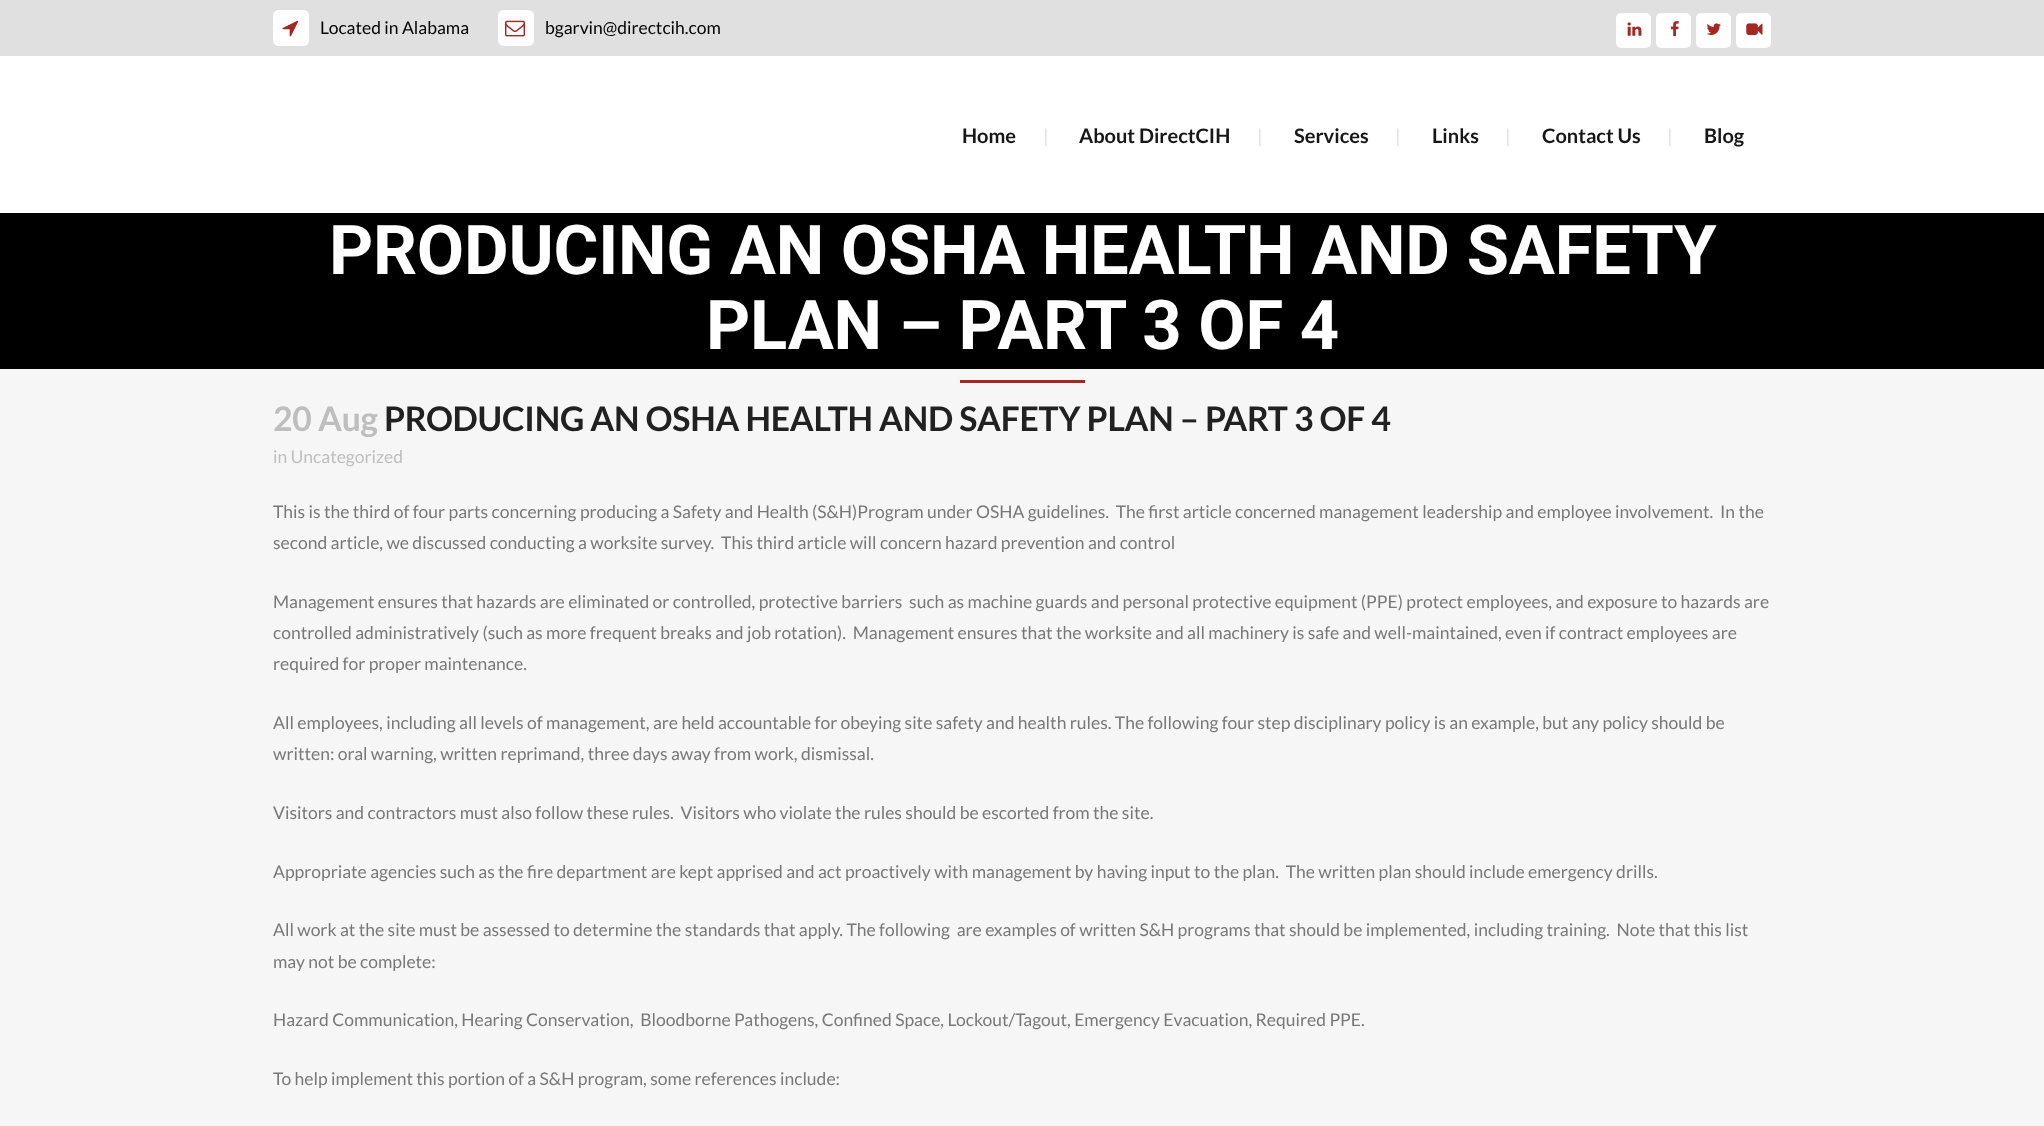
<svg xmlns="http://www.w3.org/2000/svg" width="2044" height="1126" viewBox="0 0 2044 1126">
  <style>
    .t1 { font: 17.5px Lato; fill: #000; }
    .t2 { font: bold 20px Lato; fill: #171717; }
    .t3 { font: 19px Lato; fill: #e1e1e1; }
    .t4 { font: bold 68.75px Roboto; letter-spacing: -0.25px; fill: #fff; }
    .t5 { font: bold 33.75px Lato; letter-spacing: -0.25px; fill: #bebebe; }
    .t6 { font: bold 33.75px Lato; letter-spacing: -0.25px; fill: #212121; }
    .t7 { font: 17.5px Lato; fill: #bebebe; }
    .t8 { font: 17.5px Lato; fill: #787879; }
  </style>
  <rect width="100%" height="100%" fill="#f6f6f6"/>
  <rect x="0" y="0" width="2044" height="56" fill="#e0e0e0"/>
  <rect x="273.5" y="10.5" width="35" height="35" rx="4.5" fill="#fff" stroke="#fff"/>
  <image x="282" y="20" width="17" height="17" href="images/1.png"/>
  <text x="320" y="34" class="t1">Located in Alabama</text>
  <rect x="498.5" y="10.5" width="35" height="35" rx="4.5" fill="#fff" stroke="#fff"/>
  <image x="505" y="20" width="20" height="17" href="images/2.png"/>
  <text x="545" y="34" class="t1">bgarvin@directcih.com</text>
  <rect x="1616" y="13" width="35" height="35" rx="5" fill="#fff"/>
  <image x="1627" y="22" width="15" height="14" href="images/3.png"/>
  <rect x="1656" y="13" width="35" height="35" rx="5" fill="#fff"/>
  <image x="1670" y="21" width="9" height="16" href="images/4.png"/>
  <rect x="1696" y="13" width="35" height="35" rx="5" fill="#fff"/>
  <image x="1706" y="23" width="15" height="12" href="images/5.png"/>
  <rect x="1736" y="13" width="35" height="35" rx="5" fill="#fff"/>
  <image x="1746" y="23" width="17" height="12" href="images/6.png"/>
  <rect x="0" y="56" width="2044" height="157" fill="#fff"/>
  <text x="962" y="143" class="t2">Home</text>
  <text x="1043" y="143" class="t3">|</text>
  <text x="1079" y="143" class="t2">About DirectCIH</text>
  <text x="1257" y="143" class="t3">|</text>
  <text x="1294" y="143" class="t2">Services</text>
  <text x="1395" y="143" class="t3">|</text>
  <text x="1432" y="143" class="t2">Links</text>
  <text x="1505" y="143" class="t3">|</text>
  <text x="1542" y="143" class="t2">Contact Us</text>
  <text x="1667" y="143" class="t3">|</text>
  <text x="1704" y="143" class="t2">Blog</text>
  <rect x="0" y="213" width="2044" height="156" fill="#000"/>
  <text x="329" y="274" class="t4">PRODUCING AN OSHA HEALTH AND SAFETY</text>
  <text x="706" y="349" class="t4">PLAN – PART 3 OF 4</text>
  <rect x="960" y="380" width="125" height="3" fill="#a52721"/>
  <text x="273" y="431" class="t5">20 Aug</text>
  <text x="384" y="431" class="t6">PRODUCING AN OSHA HEALTH AND SAFETY PLAN – PART 3 OF 4</text>
  <text x="273" y="463" class="t7">in Uncategorized</text>
  <text x="273" y="518" class="t8" xml:space="preserve">This is the third of four parts concerning producing a Safety and Health (S&amp;H)Program under OSHA guidelines.  The first article concerned management leadership and employee involvement.  In the</text>
  <text x="273" y="549" class="t8" xml:space="preserve">second article, we discussed conducting a worksite survey.  This third article will concern hazard prevention and control</text>
  <text x="273" y="608" class="t8" xml:space="preserve">Management ensures that hazards are eliminated or controlled, protective barriers  such as machine guards and personal protective equipment (PPE) protect employees, and exposure to hazards are</text>
  <text x="273" y="639" class="t8" xml:space="preserve">controlled administratively (such as more frequent breaks and job rotation).  Management ensures that the worksite and all machinery is safe and well-maintained, even if contract employees are</text>
  <text x="273" y="670" class="t8">required for proper maintenance.</text>
  <text x="273" y="729" class="t8">All employees, including all levels of management, are held accountable for obeying site safety and health rules. The following four step disciplinary policy is an example, but any policy should be</text>
  <text x="273" y="760" class="t8">written: oral warning, written reprimand, three days away from work, dismissal.</text>
  <text x="273" y="819" class="t8" xml:space="preserve">Visitors and contractors must also follow these rules.  Visitors who violate the rules should be escorted from the site.</text>
  <text x="273" y="878" class="t8" xml:space="preserve">Appropriate agencies such as the fire department are kept apprised and act proactively with management by having input to the plan.  The written plan should include emergency drills.</text>
  <text x="273" y="936" class="t8" xml:space="preserve">All work at the site must be assessed to determine the standards that apply. The following  are examples of written S&amp;H programs that should be implemented, including training.  Note that this list</text>
  <text x="273" y="968" class="t8">may not be complete:</text>
  <text x="273" y="1026" class="t8" xml:space="preserve">Hazard Communication, Hearing Conservation,  Bloodborne Pathogens, Confined Space, Lockout/Tagout, Emergency Evacuation, Required PPE.</text>
  <text x="273" y="1085" class="t8">To help implement this portion of a S&amp;H program, some references include:</text>
</svg>
